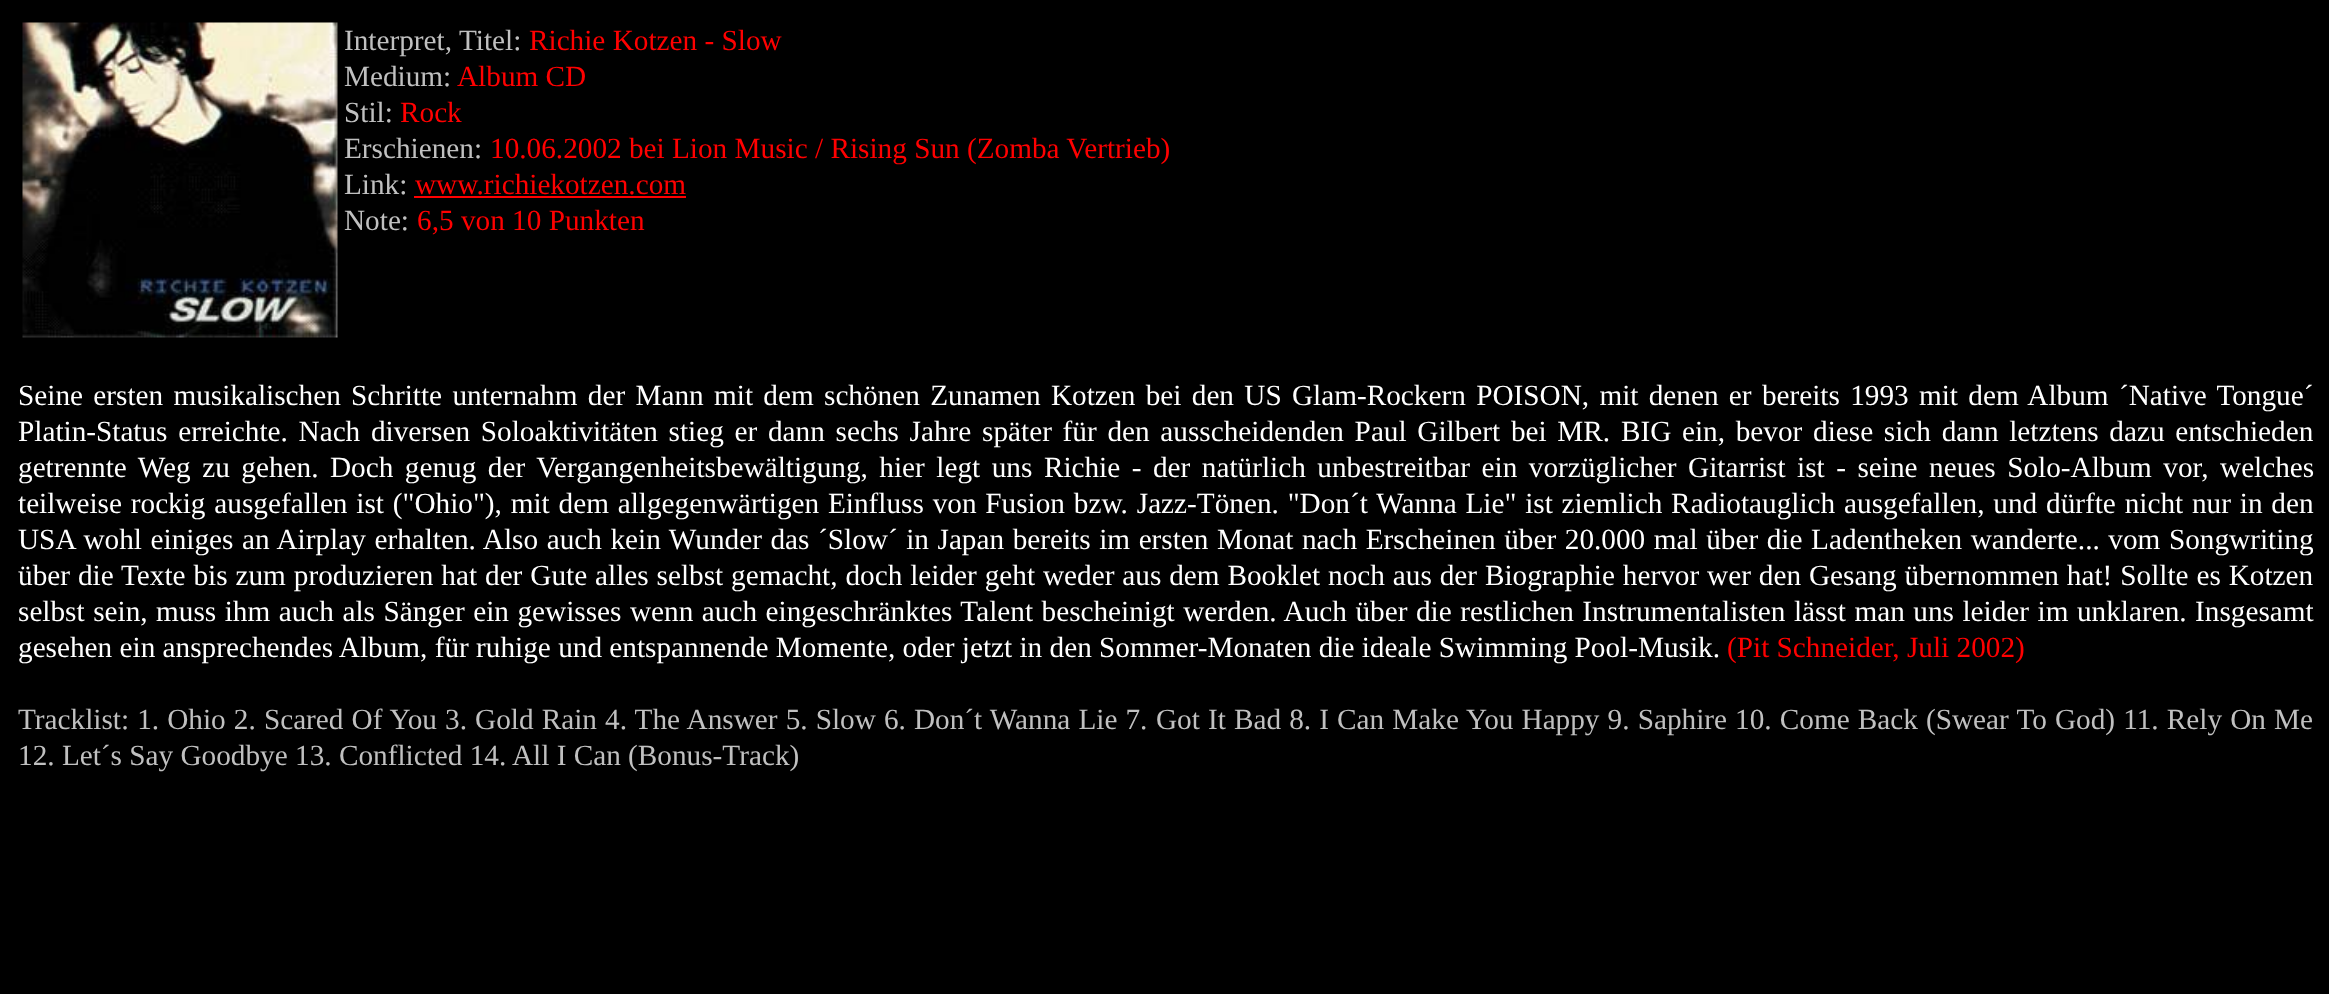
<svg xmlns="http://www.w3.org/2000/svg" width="2329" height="994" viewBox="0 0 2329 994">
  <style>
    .t1 { font: 29.25px Liberation Serif; fill: #c0c0c0; }
    .t2 { font: 29.25px Liberation Serif; fill: #f00; }
    .t3 { font: 29.25px Liberation Serif; fill: #fff; }
  </style>
  <rect width="100%" height="100%" fill="#000"/>
  <image x="22" y="22" width="316" height="316" href="images/1.png"/>
  <text x="344" y="50" class="t1">Interpret,</text>
  <text x="459" y="50" class="t1">Titel:</text>
  <text x="529" y="50" class="t2">Richie Kotzen - Slow</text>
  <text x="344" y="86" class="t1">Medium:</text>
  <text x="457" y="86" class="t2">Album CD</text>
  <text x="344" y="122" class="t1">Stil:</text>
  <text x="400" y="122" class="t2">Rock</text>
  <text x="344" y="158" class="t1">Erschienen:</text>
  <text x="490" y="158" class="t2">10.06.2002 bei Lion Music / Rising Sun (Zomba Vertrieb)</text>
  <text x="344" y="194" class="t1">Link:</text>
  <text x="415" y="194" class="t2">www.richiekotzen.com</text>
  <rect x="414" y="196" width="272" height="2" fill="#f00"/>
  <text x="344" y="230" class="t1">Note:</text>
  <text x="417" y="230" class="t2">6,5 von 10 Punkten</text>
  <text x="18" y="405" word-spacing="3" class="t3">Seine ersten musikalischen Schritte unternahm der Mann mit dem schönen Zunamen Kotzen bei den US Glam-Rockern POISON, mit denen er bereits 1993 mit dem Album ´Native Tongue´</text>
  <text x="18" y="441" word-spacing="3.4" class="t3">Platin-Status erreichte. Nach diversen Soloaktivitäten stieg er dann sechs Jahre später für den ausscheidenden Paul Gilbert bei MR. BIG ein, bevor diese sich dann letztens dazu entschieden</text>
  <text x="18" y="477" word-spacing="4.2" class="t3">getrennte Weg zu gehen. Doch genug der Vergangenheitsbewältigung, hier legt uns Richie - der natürlich unbestreitbar ein vorzüglicher Gitarrist ist - seine neues Solo-Album vor, welches</text>
  <text x="18" y="513" word-spacing="1.5" class="t3">teilweise rockig ausgefallen ist ("Ohio"), mit dem allgegenwärtigen Einfluss von Fusion bzw. Jazz-Tönen. "Don´t Wanna Lie" ist ziemlich Radiotauglich ausgefallen, und dürfte nicht nur in den</text>
  <text x="18" y="549" word-spacing="1.25" class="t3">USA wohl einiges an Airplay erhalten. Also auch kein Wunder das ´Slow´ in Japan bereits im ersten Monat nach Erscheinen über 20.000 mal über die Ladentheken wanderte... vom Songwriting</text>
  <text x="18" y="585" word-spacing="0.6" class="t3">über die Texte bis zum produzieren hat der Gute alles selbst gemacht, doch leider geht weder aus dem Booklet noch aus der Biographie hervor wer den Gesang übernommen hat! Sollte es Kotzen</text>
  <text x="18" y="621" word-spacing="1.2" class="t3">selbst sein, muss ihm auch als Sänger ein gewisses wenn auch eingeschränktes Talent bescheinigt werden. Auch über die restlichen Instrumentalisten lässt man uns leider im unklaren. Insgesamt</text>
  <text x="18" y="657" class="t3">gesehen ein ansprechendes Album, für ruhige und entspannende Momente, oder jetzt in den Sommer-Monaten die ideale Swimming Pool-Musik.</text>
  <text x="1727" y="657" class="t2">(Pit Schneider, Juli 2002)</text>
  <text x="18" y="729" word-spacing="0.8" class="t1">Tracklist: 1. Ohio 2. Scared Of You 3. Gold Rain 4. The Answer 5. Slow 6. Don´t Wanna Lie 7.</text>
  <text x="1156" y="729" word-spacing="0.8" class="t1">Got It Bad 8. I Can Make You Happy 9. Saphire 10. Come Back (Swear To God) 11. Rely On Me</text>
  <text x="18" y="765" class="t1">12. Let´s Say Goodbye 13. Conflicted 14. All I Can (Bonus-Track)</text>
</svg>
